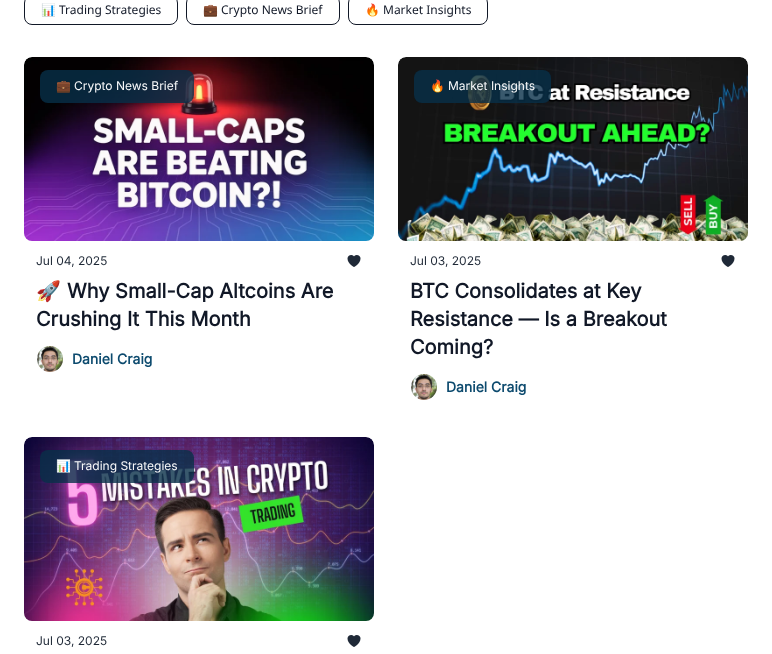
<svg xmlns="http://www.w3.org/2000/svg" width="772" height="654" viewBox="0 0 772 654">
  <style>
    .t1 { font: 12px Noto Color Emoji; fill: #111827; }
    .t2 { font: 12px Noto Sans; fill: #111827; }
    .t3 { font: 12px Noto Color Emoji; fill: #f9fafb; }
    .t4 { font: 12px Inter; fill: #f9fafb; }
    .t5 { font: 12px Inter; fill: #1f2937; }
    .t6 { font: 20px Noto Color Emoji; fill: #111827; }
    .t7 { font: bold 20px Inter; fill: #111827; }
    .t8 { font: bold 14px Inter; fill: #0c4a6e; }
  </style>
  <rect width="100%" height="100%" fill="#fff"/>
  <rect x="24.5" y="-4.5" width="153" height="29" rx="7.5" fill="none" stroke="#111827"/>
  <text x="41" y="14" class="t1">📊</text>
  <text x="59" y="14" class="t2">Trading Strategies</text>
  <rect x="186.5" y="-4.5" width="153" height="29" rx="7.5" fill="none" stroke="#111827"/>
  <text x="203" y="14" class="t1">💼</text>
  <text x="221" y="14" class="t2">Crypto News Brief</text>
  <rect x="348.5" y="-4.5" width="139" height="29" rx="7.5" fill="none" stroke="#111827"/>
  <text x="365" y="14" class="t1">🔥</text>
  <text x="383" y="14" class="t2">Market Insights</text>
  <image x="24" y="57" width="350" height="184" href="images/1.png"/>
  <rect x="40" y="70" width="154" height="33" rx="8" fill="#082f49cc"/>
  <text x="56" y="90" class="t3">💼</text>
  <text x="74" y="90" class="t4">Crypto News Brief</text>
  <text x="36" y="265" class="t5">Jul 04, 2025</text>
  <image x="347" y="255" width="14" height="12" href="images/2.png"/>
  <text x="36" y="298" class="t6">🚀</text>
  <text x="67" y="298" class="t7">Why Small-Cap Altcoins Are</text>
  <text x="36" y="326" class="t7">Crushing It This Month</text>
  <image x="37" y="346" width="26" height="26" href="images/3.png"/>
  <text x="72" y="364" class="t8">Daniel Craig</text>
  <image x="398" y="57" width="350" height="184" href="images/4.png"/>
  <rect x="414" y="70" width="137" height="33" rx="8" fill="#082f49cc"/>
  <text x="430" y="90" class="t3">🔥</text>
  <text x="448" y="90" class="t4">Market Insights</text>
  <text x="410" y="265" class="t5">Jul 03, 2025</text>
  <image x="721" y="255" width="14" height="12" href="images/2.png"/>
  <text x="410" y="298" class="t7">BTC Consolidates at Key</text>
  <text x="410" y="326" class="t7">Resistance — Is a Breakout</text>
  <text x="410" y="354" class="t7">Coming?</text>
  <image x="411" y="374" width="26" height="26" href="images/5.png"/>
  <text x="446" y="392" class="t8">Daniel Craig</text>
  <image x="24" y="437" width="350" height="184" href="images/6.png"/>
  <rect x="40" y="450" width="154" height="33" rx="8" fill="#082f49cc"/>
  <text x="56" y="470" class="t3">📊</text>
  <text x="74" y="470" class="t4">Trading Strategies</text>
  <text x="36" y="645" class="t5">Jul 03, 2025</text>
  <image x="347" y="635" width="14" height="12" href="images/2.png"/>
</svg>
